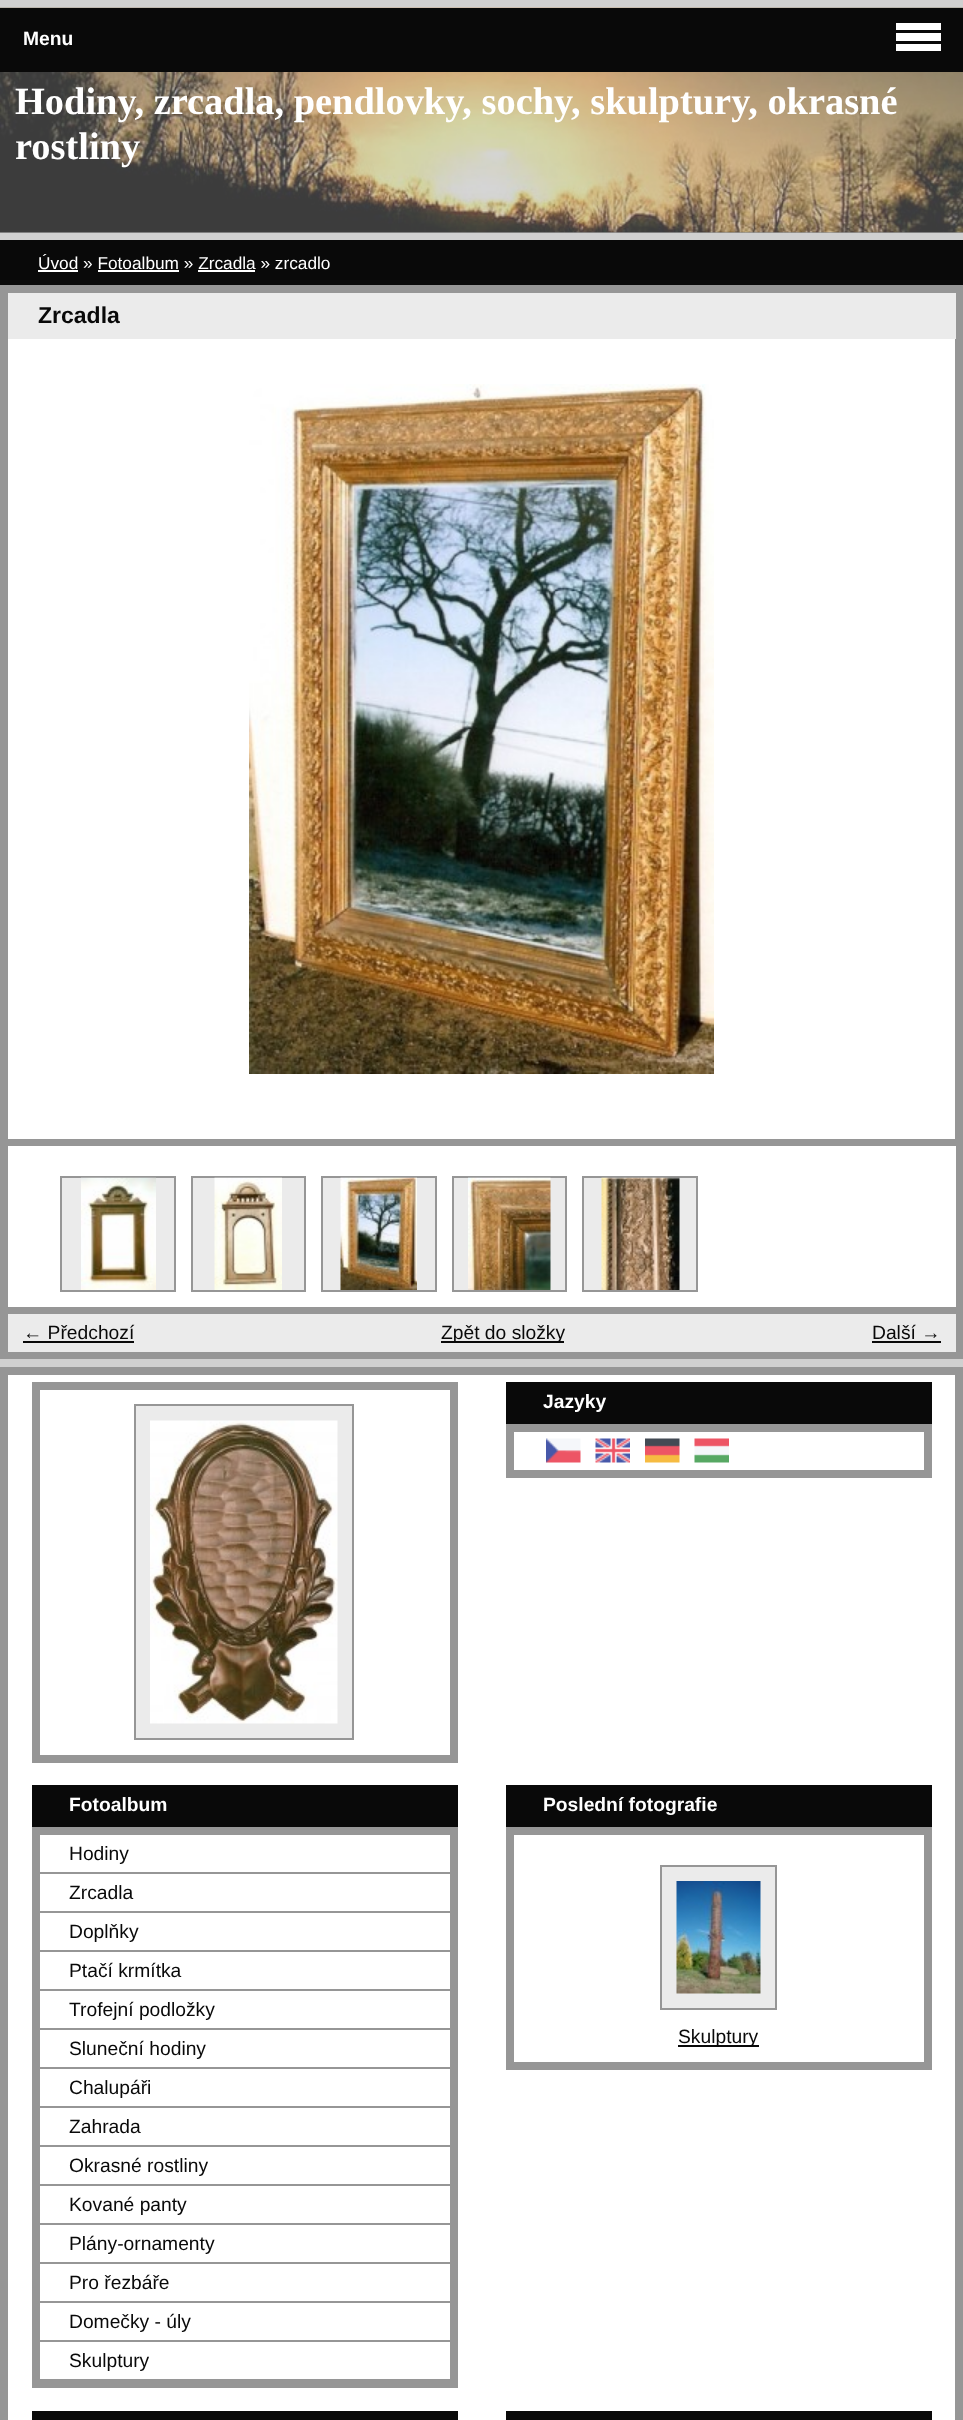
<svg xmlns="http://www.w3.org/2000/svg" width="963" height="2420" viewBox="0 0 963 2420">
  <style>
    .t1 { font: bold 19.25px Liberation Sans; fill: #fff; }
    .t2 { font: 19.25px Liberation Sans; fill: #090909; }
    .t3 { font: 17.25px Liberation Sans; fill: #fff; }
    .t4 { font: bold 23px Liberation Sans; fill: #090909; }
    .t5 { font: bold 38.4px Liberation Serif; fill: #fff; }
  </style>
  <rect width="100%" height="100%" fill="#d0d0d0"/>
  <rect x="0" y="232" width="963" height="1" fill="#969696"/>
  <image x="0" y="7" width="963" height="226" href="images/13.png"/>
  <rect x="0" y="8" width="963" height="64" fill="#090909"/>
  <rect x="896" y="23" width="45" height="7" fill="#fff"/>
  <rect x="896" y="33" width="45" height="8" fill="#fff"/>
  <rect x="896" y="44" width="45" height="7" fill="#fff"/>
  <rect x="4" y="1371" width="955" height="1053" fill="#fff" stroke="#969696" stroke-width="8"/>
  <text x="23" y="45" class="t1">Menu</text>
  <rect x="36" y="1386" width="418" height="373" fill="none" stroke="#969696" stroke-width="8"/>
  <rect x="135" y="1405" width="218" height="334" fill="#ebebeb" stroke="#969696" stroke-width="2"/>
  <image x="150" y="1420" width="188" height="304" href="images/1.png"/>
  <rect x="506" y="1382" width="426" height="42" fill="#090909"/>
  <text x="543" y="1408" class="t1">Jazyky</text>
  <rect x="510" y="1428" width="418" height="46" fill="none" stroke="#969696" stroke-width="8"/>
  <image x="546" y="1438" width="35" height="25" href="images/2.png"/>
  <image x="595" y="1438" width="35" height="25" href="images/3.png"/>
  <image x="645" y="1438" width="35" height="25" href="images/4.png"/>
  <image x="694" y="1438" width="35" height="25" href="images/5.png"/>
  <rect x="32" y="1785" width="426" height="42" fill="#090909"/>
  <text x="69" y="1811" class="t1">Fotoalbum</text>
  <rect x="36" y="1831" width="418" height="553" fill="none" stroke="#969696" stroke-width="8"/>
  <rect x="39" y="1872" width="411" height="2" fill="#969696"/>
  <text x="69" y="1860" class="t2">Hodiny</text>
  <rect x="39" y="1911" width="411" height="2" fill="#969696"/>
  <text x="69" y="1899" class="t2">Zrcadla</text>
  <rect x="39" y="1950" width="411" height="2" fill="#969696"/>
  <text x="69" y="1938" class="t2">Doplňky</text>
  <rect x="39" y="1989" width="411" height="2" fill="#969696"/>
  <text x="69" y="1977" class="t2">Ptačí krmítka</text>
  <rect x="39" y="2028" width="411" height="2" fill="#969696"/>
  <text x="69" y="2016" class="t2">Trofejní podložky</text>
  <rect x="39" y="2067" width="411" height="2" fill="#969696"/>
  <text x="69" y="2055" class="t2">Sluneční hodiny</text>
  <rect x="39" y="2106" width="411" height="2" fill="#969696"/>
  <text x="69" y="2094" class="t2">Chalupáři</text>
  <rect x="39" y="2145" width="411" height="2" fill="#969696"/>
  <text x="69" y="2133" class="t2">Zahrada</text>
  <rect x="39" y="2184" width="411" height="2" fill="#969696"/>
  <text x="69" y="2172" class="t2">Okrasné rostliny</text>
  <rect x="39" y="2223" width="411" height="2" fill="#969696"/>
  <text x="69" y="2211" class="t2">Kované panty</text>
  <rect x="39" y="2262" width="411" height="2" fill="#969696"/>
  <text x="69" y="2250" class="t2">Plány-ornamenty</text>
  <rect x="39" y="2301" width="411" height="2" fill="#969696"/>
  <text x="69" y="2289" class="t2">Pro řezbáře</text>
  <rect x="39" y="2340" width="411" height="2" fill="#969696"/>
  <text x="69" y="2328" class="t2">Domečky - úly</text>
  <rect x="39" y="2379" width="411" height="1" fill="#969696"/>
  <text x="69" y="2367" class="t2">Skulptury</text>
  <rect x="506" y="1785" width="426" height="42" fill="#090909"/>
  <text x="543" y="1811" class="t1">Poslední fotografie</text>
  <rect x="510" y="1831" width="418" height="235" fill="none" stroke="#969696" stroke-width="8"/>
  <rect x="661" y="1866" width="115" height="143" fill="#ebebeb" stroke="#969696" stroke-width="2"/>
  <image x="676" y="1881" width="85" height="113" href="images/6.png"/>
  <rect x="678" y="2045" width="81" height="2" fill="#090909"/>
  <text x="678" y="2043" class="t2">Skulptury</text>
  <rect x="32" y="2411" width="426" height="9" fill="#090909"/>
  <rect x="506" y="2411" width="426" height="9" fill="#090909"/>
  <rect x="0" y="240" width="963" height="45" fill="#090909"/>
  <text x="38" y="269" class="t3">Úvod » Fotoalbum » Zrcadla » zrcadlo</text>
  <rect x="38" y="270" width="40" height="2" fill="#fff"/>
  <rect x="98" y="270" width="81" height="2" fill="#fff"/>
  <rect x="198" y="270" width="57" height="2" fill="#fff"/>
  <rect x="8" y="339" width="947" height="800" fill="#fff"/>
  <rect x="4" y="289" width="955" height="1066" fill="none" stroke="#969696" stroke-width="8"/>
  <rect x="8" y="293" width="948" height="46" fill="#ebebeb"/>
  <text x="38" y="323" class="t4">Zrcadla</text>
  <image x="249" y="384" width="465" height="690" href="images/7.png"/>
  <rect x="8" y="1146" width="948" height="161" fill="#fff"/>
  <rect x="8" y="1139" width="948" height="7" fill="#969696"/>
  <rect x="61" y="1177" width="114" height="114" fill="#ebebeb" stroke="#969696" stroke-width="2"/>
  <image x="81" y="1177" width="75" height="113" href="images/8.png"/>
  <rect x="192" y="1177" width="113" height="114" fill="#ebebeb" stroke="#969696" stroke-width="2"/>
  <image x="214" y="1177" width="68" height="113" href="images/9.png"/>
  <rect x="322" y="1177" width="114" height="114" fill="#ebebeb" stroke="#969696" stroke-width="2"/>
  <image x="340" y="1177" width="77" height="113" href="images/10.png"/>
  <rect x="453" y="1177" width="113" height="114" fill="#ebebeb" stroke="#969696" stroke-width="2"/>
  <image x="468" y="1177" width="83" height="113" href="images/11.png"/>
  <rect x="583" y="1177" width="114" height="114" fill="#ebebeb" stroke="#969696" stroke-width="2"/>
  <image x="601" y="1177" width="79" height="113" href="images/12.png"/>
  <rect x="8" y="1314" width="948" height="38" fill="#ebebeb"/>
  <rect x="8" y="1307" width="948" height="7" fill="#969696"/>
  <text x="23" y="1339" class="t2">← Předchozí</text>
  <rect x="23" y="1341" width="111" height="2" fill="#090909"/>
  <rect x="441" y="1341" width="123" height="2" fill="#090909"/>
  <text x="441" y="1339" class="t2">Zpět do složky</text>
  <text x="872" y="1339" class="t2">Další →</text>
  <rect x="872" y="1341" width="69" height="2" fill="#090909"/>
  <rect x="0" y="72" width="963" height="161" fill="#96969666"/>
  <text x="15" y="114" class="t5">Hodiny, zrcadla, pendlovky, sochy, skulptury, okrasné</text>
  <text x="15" y="159" class="t5">rostliny</text>
</svg>
